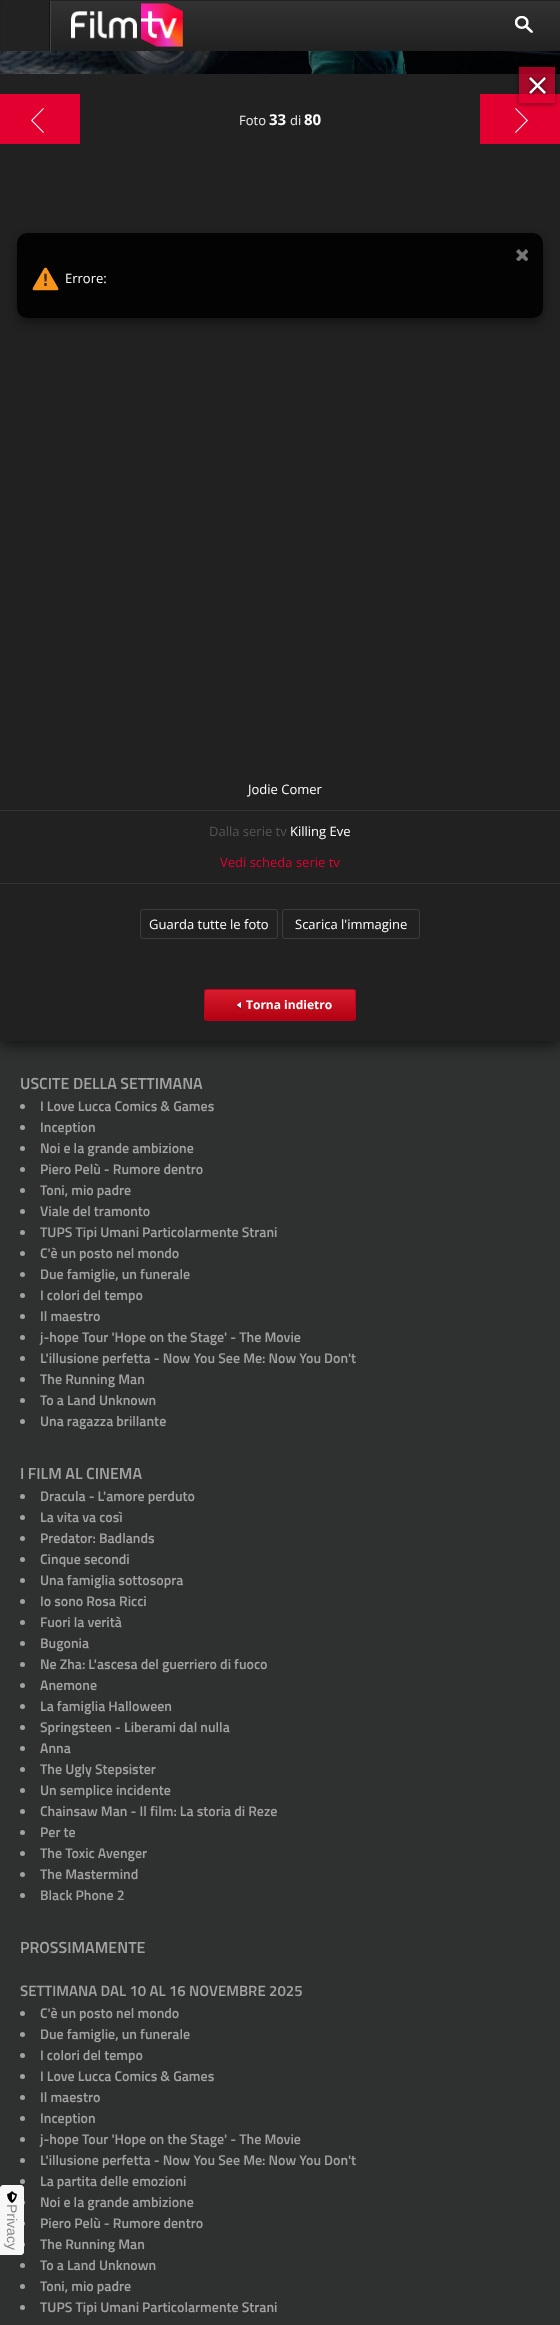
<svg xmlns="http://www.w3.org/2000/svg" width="560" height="2325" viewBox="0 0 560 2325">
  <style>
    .t1 { font: 13px Open Sans; fill: #fff; }
    .t2 { font: 13px Open Sans; fill: #eee; }
    .t3 { font: bold 15px Open Sans; fill: #fff; }
    .t4 { font: 13px Open Sans; fill: #555; }
    .t5 { font: 13px Open Sans; fill: #e30031; }
    .t6 { font: bold 12px Open Sans; fill: #fff; }
    .t7 { font: 14px Liberation Sans; fill: #888; }
    .t8 { font: 600 16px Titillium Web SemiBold; fill: #a2a2a2; }
    .t9 { font: 600 14px Titillium Web SemiBold; fill: #a2a2a2; }
    .t10 { font: 600 15px Titillium Web SemiBold; fill: #a2a2a2; }
  </style>
  <defs>
    <linearGradient id="g1" gradientUnits="userSpaceOnUse" x1="280" y1="-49" x2="280" y2="1"><stop offset="0" stop-color="#323233"/><stop offset="1" stop-color="#212121"/></linearGradient>
    <linearGradient id="g2" gradientUnits="userSpaceOnUse" x1="280" y1="1" x2="280" y2="51"><stop offset="0" stop-color="#323233"/><stop offset="1" stop-color="#212121"/></linearGradient>
    <clipPath id="clip1"><path d="M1 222H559V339H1ZM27 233H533C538.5 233 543 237.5 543 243V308C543 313.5 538.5 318 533 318H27C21.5 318 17 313.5 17 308V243C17 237.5 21.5 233 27 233Z" clip-rule="evenodd"/></clipPath>
    <clipPath id="clip2"><path d="M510 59H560V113H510ZM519 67H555V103H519Z" clip-rule="evenodd"/></clipPath>
    <clipPath id="clip3"><rect x="204" y="989" width="152" height="32" rx="3"/></clipPath>
    <linearGradient id="g3" gradientUnits="userSpaceOnUse" x1="280" y1="990" x2="280" y2="1020"><stop offset="0" stop-color="#da1c2d"/><stop offset="1" stop-color="#b10110"/></linearGradient>
  </defs>
  <rect width="100%" height="100%" fill="#2f3030"/>
  <rect x="0" y="-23" width="560" height="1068" fill="#00000099" filter="blur(7.5px)"/>
  <rect x="0" y="0" width="560" height="1" fill="url(#g1)"/>
  <rect x="51" y="1" width="509" height="50" fill="url(#g2)"/>
  <rect x="1" y="1" width="48" height="50" fill="#222"/>
  <rect x="50" y="1" width="1" height="50" fill="#444"/>
  <image x="71" y="3" width="112" height="44" href="images/1.png"/>
  <image x="515" y="16" width="18" height="17" href="images/2.png"/>
  <rect x="0" y="74" width="560" height="967" fill="#212121"/>
  <g clip-path="url(#clip1)">
    <rect x="17" y="238" width="526" height="85" rx="10" fill="#00000066" filter="blur(5px)"/>
  </g>
  <rect x="17" y="233" width="526" height="85" rx="10" fill="#000000e6"/>
  <image x="516" y="249" width="12" height="12" href="images/3.png"/>
  <image x="32" y="267" width="27" height="24" href="images/4.png"/>
  <text x="65" y="283" class="t1">Errore:</text>
  <image x="0" y="51" width="560" height="23" href="images/6.png"/>
  <rect x="480" y="94" width="80" height="50" fill="#e30031"/>
  <image x="515" y="108" width="13" height="25" href="images/8.png"/>
  <g clip-path="url(#clip2)">
    <rect x="519" y="68" width="36" height="36" fill="#00000080" filter="blur(2.5px)"/>
  </g>
  <rect x="519" y="67" width="36" height="27" fill="#e30031b3"/>
  <image x="528" y="76" width="20" height="20" href="images/5.png"/>
  <rect x="0" y="94" width="80" height="50" fill="#e30031"/>
  <image x="31" y="108" width="13" height="25" href="images/7.png"/>
  <text x="239" y="125" class="t2">Foto</text>
  <text x="269" y="125" class="t3">33</text>
  <text x="290" y="125" class="t2">di</text>
  <text x="304" y="125" class="t3">80</text>
  <rect x="0" y="810" width="560" height="1" fill="#333"/>
  <text x="248" y="794" class="t1">Jodie Comer</text>
  <rect x="0" y="883" width="560" height="1" fill="#333"/>
  <text x="209" y="836" class="t4">Dalla serie tv</text>
  <text x="290" y="836" class="t1">Killing Eve</text>
  <text x="220" y="867" class="t5">Vedi scheda serie tv</text>
  <rect x="140.5" y="909.5" width="137" height="29" rx="2.5" fill="none" stroke="#3d3d3d"/>
  <text x="149" y="929" class="t1">Guarda tutte le foto</text>
  <rect x="282.5" y="909.5" width="137" height="29" rx="2.5" fill="none" stroke="#3d3d3d"/>
  <text x="295" y="929" class="t1">Scarica l'immagine</text>
  <g clip-path="url(#clip3)">
    <rect x="204" y="990" width="152" height="30" fill="url(#g3)"/>
  </g>
  <rect x="204.5" y="989.5" width="151" height="31" rx="2.5" fill="none" stroke="#bc0028"/>
  <image x="236" y="1002" width="6" height="7" href="images/9.png"/>
  <text x="246" y="1009" class="t6">Torna indietro</text>
  <circle cx="22.5" cy="2202.5" r="2.5" fill="#a2a2a2"/>
  <circle cx="22.5" cy="2223.5" r="2.5" fill="#a2a2a2"/>
  <circle cx="22.5" cy="2244.5" r="2.5" fill="#a2a2a2"/>
  <path d="M3 2185H21C22.5 2185 24 2186.5 24 2188V2252C24 2253.5 22.5 2255 21 2255H0V2188C0 2186.5 1.5 2185 3 2185Z" fill="#f7f7f7"/>
  <image x="7" y="2191" width="10" height="12" href="images/10.png"/>
  <text x="7" y="2204" transform="rotate(90 7 2204)" class="t7">Privacy</text>
  <text x="20" y="1089" class="t8">USCITE DELLA SETTIMANA</text>
  <circle cx="22.5" cy="1106.5" r="2.5" fill="#a2a2a2"/>
  <text x="40" y="1111" class="t9">I Love Lucca Comics &amp; Games</text>
  <circle cx="22.5" cy="1127.5" r="2.5" fill="#a2a2a2"/>
  <text x="40" y="1132" class="t9">Inception</text>
  <circle cx="22.5" cy="1148.5" r="2.5" fill="#a2a2a2"/>
  <text x="40" y="1153" class="t9">Noi e la grande ambizione</text>
  <circle cx="22.5" cy="1169.5" r="2.5" fill="#a2a2a2"/>
  <text x="40" y="1174" class="t9">Piero Pelù - Rumore dentro</text>
  <circle cx="22.5" cy="1190.5" r="2.5" fill="#a2a2a2"/>
  <text x="40" y="1195" class="t9">Toni, mio padre</text>
  <circle cx="22.5" cy="1211.5" r="2.5" fill="#a2a2a2"/>
  <text x="40" y="1216" class="t9">Viale del tramonto</text>
  <circle cx="22.5" cy="1232.5" r="2.5" fill="#a2a2a2"/>
  <text x="40" y="1237" class="t9">TUPS Tipi Umani Particolarmente Strani</text>
  <circle cx="22.5" cy="1253.5" r="2.5" fill="#a2a2a2"/>
  <text x="40" y="1258" class="t9">C'è un posto nel mondo</text>
  <circle cx="22.5" cy="1274.5" r="2.5" fill="#a2a2a2"/>
  <text x="40" y="1279" class="t9">Due famiglie, un funerale</text>
  <circle cx="22.5" cy="1295.5" r="2.5" fill="#a2a2a2"/>
  <text x="40" y="1300" class="t9">I colori del tempo</text>
  <circle cx="22.5" cy="1316.5" r="2.5" fill="#a2a2a2"/>
  <text x="40" y="1321" class="t9">Il maestro</text>
  <circle cx="22.5" cy="1337.5" r="2.5" fill="#a2a2a2"/>
  <text x="40" y="1342" class="t9">j-hope Tour 'Hope on the Stage' - The Movie</text>
  <circle cx="22.5" cy="1358.5" r="2.5" fill="#a2a2a2"/>
  <text x="40" y="1363" class="t9">L'illusione perfetta - Now You See Me: Now You Don't</text>
  <circle cx="22.5" cy="1379.5" r="2.5" fill="#a2a2a2"/>
  <text x="40" y="1384" class="t9">The Running Man</text>
  <circle cx="22.5" cy="1400.5" r="2.5" fill="#a2a2a2"/>
  <text x="40" y="1405" class="t9">To a Land Unknown</text>
  <circle cx="22.5" cy="1421.5" r="2.5" fill="#a2a2a2"/>
  <text x="40" y="1426" class="t9">Una ragazza brillante</text>
  <text x="20" y="1479" class="t8">I FILM AL CINEMA</text>
  <circle cx="22.5" cy="1496.5" r="2.5" fill="#a2a2a2"/>
  <text x="40" y="1501" class="t9">Dracula - L'amore perduto</text>
  <circle cx="22.5" cy="1517.5" r="2.5" fill="#a2a2a2"/>
  <text x="40" y="1522" class="t9">La vita va così</text>
  <circle cx="22.5" cy="1538.5" r="2.5" fill="#a2a2a2"/>
  <text x="40" y="1543" class="t9">Predator: Badlands</text>
  <circle cx="22.5" cy="1559.5" r="2.5" fill="#a2a2a2"/>
  <text x="40" y="1564" class="t9">Cinque secondi</text>
  <circle cx="22.5" cy="1580.5" r="2.5" fill="#a2a2a2"/>
  <text x="40" y="1585" class="t9">Una famiglia sottosopra</text>
  <circle cx="22.5" cy="1601.5" r="2.5" fill="#a2a2a2"/>
  <text x="40" y="1606" class="t9">Io sono Rosa Ricci</text>
  <circle cx="22.5" cy="1622.5" r="2.5" fill="#a2a2a2"/>
  <text x="40" y="1627" class="t9">Fuori la verità</text>
  <circle cx="22.5" cy="1643.5" r="2.5" fill="#a2a2a2"/>
  <text x="40" y="1648" class="t9">Bugonia</text>
  <circle cx="22.5" cy="1664.5" r="2.5" fill="#a2a2a2"/>
  <text x="40" y="1669" class="t9">Ne Zha: L'ascesa del guerriero di fuoco</text>
  <circle cx="22.5" cy="1685.5" r="2.5" fill="#a2a2a2"/>
  <text x="40" y="1690" class="t9">Anemone</text>
  <circle cx="22.5" cy="1706.5" r="2.5" fill="#a2a2a2"/>
  <text x="40" y="1711" class="t9">La famiglia Halloween</text>
  <circle cx="22.5" cy="1727.5" r="2.5" fill="#a2a2a2"/>
  <text x="40" y="1732" class="t9">Springsteen - Liberami dal nulla</text>
  <circle cx="22.5" cy="1748.5" r="2.5" fill="#a2a2a2"/>
  <text x="40" y="1753" class="t9">Anna</text>
  <circle cx="22.5" cy="1769.5" r="2.5" fill="#a2a2a2"/>
  <text x="40" y="1774" class="t9">The Ugly Stepsister</text>
  <circle cx="22.5" cy="1790.5" r="2.5" fill="#a2a2a2"/>
  <text x="40" y="1795" class="t9">Un semplice incidente</text>
  <circle cx="22.5" cy="1811.5" r="2.5" fill="#a2a2a2"/>
  <text x="40" y="1816" class="t9">Chainsaw Man - Il film: La storia di Reze</text>
  <circle cx="22.5" cy="1832.5" r="2.5" fill="#a2a2a2"/>
  <text x="40" y="1837" class="t9">Per te</text>
  <circle cx="22.5" cy="1853.5" r="2.5" fill="#a2a2a2"/>
  <text x="40" y="1858" class="t9">The Toxic Avenger</text>
  <circle cx="22.5" cy="1874.5" r="2.5" fill="#a2a2a2"/>
  <text x="40" y="1879" class="t9">The Mastermind</text>
  <circle cx="22.5" cy="1895.5" r="2.5" fill="#a2a2a2"/>
  <text x="40" y="1900" class="t9">Black Phone 2</text>
  <text x="20" y="1953" class="t8">PROSSIMAMENTE</text>
  <text x="20" y="1996" class="t10">SETTIMANA DAL 10 AL 16 NOVEMBRE 2025</text>
  <circle cx="22.5" cy="2013.5" r="2.5" fill="#a2a2a2"/>
  <text x="40" y="2018" class="t9">C'è un posto nel mondo</text>
  <circle cx="22.5" cy="2034.5" r="2.5" fill="#a2a2a2"/>
  <text x="40" y="2039" class="t9">Due famiglie, un funerale</text>
  <circle cx="22.5" cy="2055.5" r="2.5" fill="#a2a2a2"/>
  <text x="40" y="2060" class="t9">I colori del tempo</text>
  <circle cx="22.5" cy="2076.5" r="2.5" fill="#a2a2a2"/>
  <text x="40" y="2081" class="t9">I Love Lucca Comics &amp; Games</text>
  <circle cx="22.5" cy="2097.5" r="2.5" fill="#a2a2a2"/>
  <text x="40" y="2102" class="t9">Il maestro</text>
  <circle cx="22.5" cy="2118.5" r="2.5" fill="#a2a2a2"/>
  <text x="40" y="2123" class="t9">Inception</text>
  <circle cx="22.5" cy="2139.5" r="2.5" fill="#a2a2a2"/>
  <text x="40" y="2144" class="t9">j-hope Tour 'Hope on the Stage' - The Movie</text>
  <circle cx="22.5" cy="2160.5" r="2.5" fill="#a2a2a2"/>
  <text x="40" y="2165" class="t9">L'illusione perfetta - Now You See Me: Now You Don't</text>
  <circle cx="22.5" cy="2181.5" r="2.5" fill="#a2a2a2"/>
  <text x="40" y="2186" class="t9">La partita delle emozioni</text>
  <text x="40" y="2207" class="t9">Noi e la grande ambizione</text>
  <text x="40" y="2228" class="t9">Piero Pelù - Rumore dentro</text>
  <text x="40" y="2249" class="t9">The Running Man</text>
  <circle cx="22.5" cy="2265.5" r="2.5" fill="#a2a2a2"/>
  <text x="40" y="2270" class="t9">To a Land Unknown</text>
  <circle cx="22.5" cy="2286.5" r="2.5" fill="#a2a2a2"/>
  <text x="40" y="2291" class="t9">Toni, mio padre</text>
  <circle cx="22.5" cy="2307.5" r="2.5" fill="#a2a2a2"/>
  <text x="40" y="2312" class="t9">TUPS Tipi Umani Particolarmente Strani</text>
</svg>
